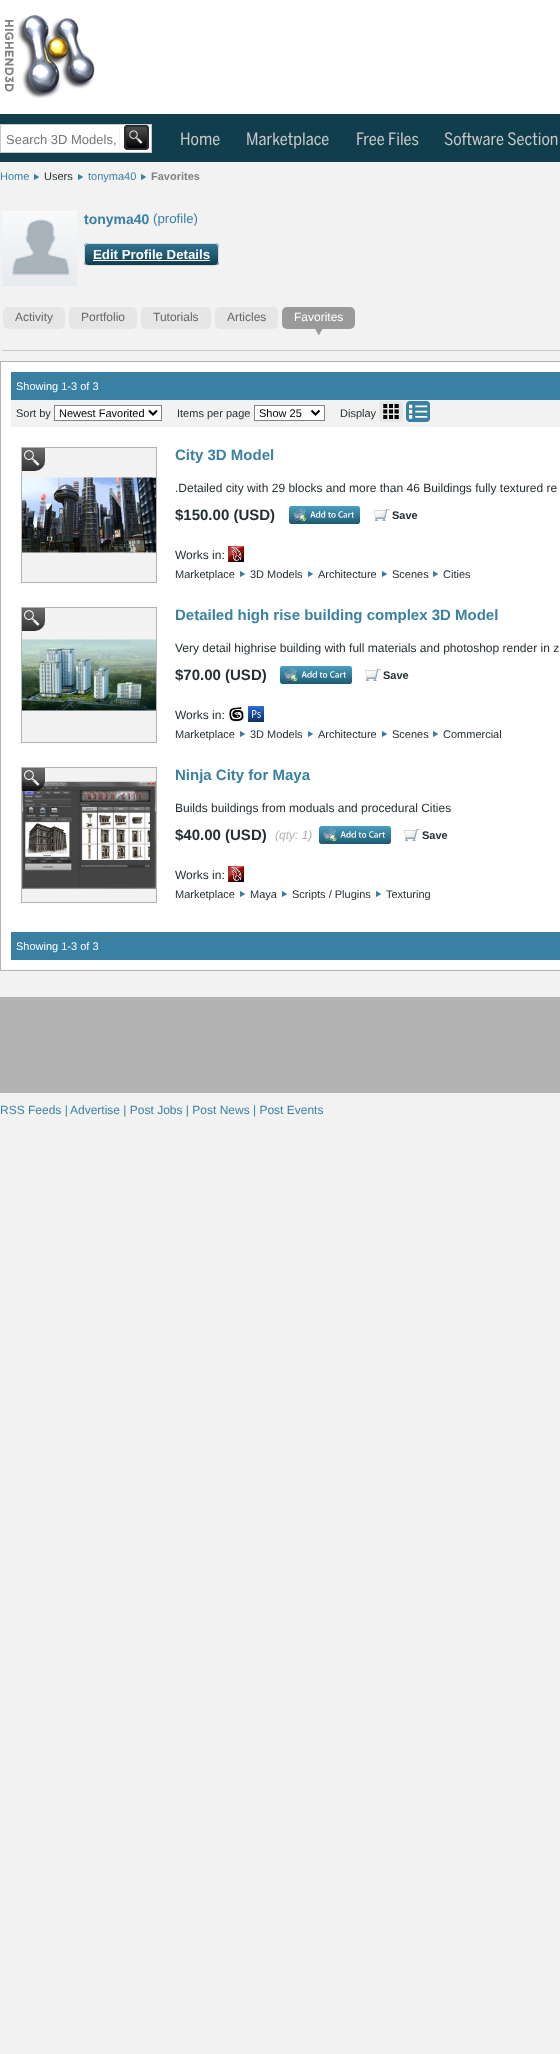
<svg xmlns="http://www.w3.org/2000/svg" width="560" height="2054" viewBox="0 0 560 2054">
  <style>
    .t1 { font: 13px Liberation Sans; fill: #757575; }
    .t2 { font: 17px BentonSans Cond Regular; fill: #c9c9c9; }
    .t3 { font: 11px Liberation Sans; fill: #3980a3; }
    .t4 { font: 11px Liberation Sans; fill: #242e33; }
    .t5 { font: bold 11px Liberation Sans; fill: #828282; }
    .t6 { font: bold 14px Liberation Sans; fill: #3980a3; }
    .t7 { font: 13.25px Liberation Sans; fill: #3980a3; }
    .t8 { font: bold 13.25px Liberation Sans; fill: #fff; }
    .t9 { font: 12px Liberation Sans; fill: #666; }
    .t10 { font: 12px Liberation Sans; fill: #fff; }
    .t11 { font: 11px Liberation Sans; fill: #fff; }
    .t12 { font: 11px Liberation Sans; fill: #000; }
    .t13 { font: bold 15px Liberation Sans; fill: #3980a3; }
    .t14 { font: 12px Liberation Sans; fill: #242e33; }
    .t15 { font: bold 15px Liberation Sans; fill: #242e33; }
    .t16 { font: bold 11px Liberation Sans; fill: #242e33; }
    .t17 { font: italic 12px Liberation Sans; fill: #b3b3b3; }
    .t18 { font: 12px Liberation Sans; fill: #3980a3; }
  </style>
  <defs>
    <clipPath id="clip1"><rect x="292" y="887" width="89" height="13"/></clipPath>
    <clipPath id="clip2"><rect x="386" y="887" width="55" height="13"/></clipPath>
  </defs>
  <rect width="100%" height="100%" fill="#f2f2f2"/>
  <rect x="0" y="0" width="560" height="114" fill="#fff"/>
  <image x="5" y="14" width="90" height="84" href="images/1.png"/>
  <rect x="0" y="114" width="560" height="48" fill="#103e4c"/>
  <rect x="0.5" y="124.5" width="151" height="28" fill="#fff" stroke="#c9c9c9"/>
  <rect x="119" y="129" width="1" height="21" fill="#f2f2f2"/>
  <text x="6" y="144" class="t1">Search 3D Models,</text>
  <image x="124" y="125" width="25" height="25" href="images/2.png"/>
  <rect x="125" y="126" width="23" height="23" rx="3" fill="none" stroke="#242e33" stroke-width="2"/>
  <text x="180" y="145" class="t2">Home</text>
  <text x="246" y="145" class="t2">Marketplace</text>
  <text x="356" y="145" class="t2">Free Files</text>
  <text x="444" y="145" class="t2">Software Section</text>
  <image x="34" y="174" width="5" height="6" href="images/3.png"/>
  <text x="0" y="180" class="t3">Home</text>
  <image x="78" y="174" width="5" height="6" href="images/3.png"/>
  <text x="44" y="180" class="t4">Users</text>
  <image x="141" y="174" width="5" height="6" href="images/3.png"/>
  <text x="88" y="180" class="t3">tonyma40</text>
  <text x="151" y="180" class="t5">Favorites</text>
  <rect x="2" y="350" width="558" height="1" fill="#c9c9c9"/>
  <image x="2" y="211" width="75" height="75" href="images/4.png"/>
  <text x="84" y="224" class="t6">tonyma40</text>
  <text x="153" y="223" class="t7">(profile)</text>
  <image x="84" y="243" width="135" height="22" href="images/5.png"/>
  <rect x="84.5" y="243.5" width="134" height="22" rx="3.5" fill="none" stroke="#d9d9d9"/>
  <text x="93" y="259" class="t8">Edit Profile Details</text>
  <rect x="93" y="260" width="117" height="1" fill="#fff"/>
  <rect x="3" y="307" width="62" height="22" rx="5" fill="#e6e6e6"/>
  <text x="15" y="321" class="t9">Activity</text>
  <rect x="69" y="307" width="68" height="22" rx="5" fill="#e6e6e6"/>
  <text x="81" y="321" class="t9">Portfolio</text>
  <rect x="141" y="307" width="70" height="22" rx="5" fill="#e6e6e6"/>
  <text x="153" y="321" class="t9">Tutorials</text>
  <rect x="215" y="307" width="63" height="22" rx="5" fill="#e6e6e6"/>
  <text x="227" y="321" class="t9">Articles</text>
  <image x="315" y="329" width="8" height="6" href="images/6.png"/>
  <rect x="282" y="307" width="73" height="22" rx="5" fill="#9a9a9a"/>
  <text x="294" y="321" class="t10">Favorites</text>
  <rect x="0.5" y="361.5" width="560" height="609" fill="#fff" stroke="#b3b3b3"/>
  <rect x="11" y="372" width="549" height="28" fill="#3980a3"/>
  <text x="16" y="390" class="t11">Showing 1-3 of 3</text>
  <rect x="11" y="400" width="549" height="27" fill="#f2f2f2"/>
  <text x="16" y="417" class="t4">Sort by</text>
  <rect x="54.5" y="405.5" width="107" height="15" fill="#fff" stroke="#828282"/>
  <path d="M149 410.5L153 414.5L157 410.5" fill="none" stroke="#000" stroke-width="2"/>
  <text x="59" y="417" class="t12">Newest Favorited</text>
  <text x="177" y="417" class="t4">Items per page</text>
  <rect x="254.5" y="405.5" width="70" height="15" fill="#fff" stroke="#828282"/>
  <path d="M311.5 410.5L315.5 414.5L319.5 410.5" fill="none" stroke="#000" stroke-width="2"/>
  <text x="259" y="417" class="t12">Show 25</text>
  <text x="340" y="417" class="t4">Display</text>
  <image x="379" y="401" width="24" height="21" href="images/7.png"/>
  <image x="406" y="401" width="24" height="21" href="images/8.png"/>
  <rect x="21.5" y="447.5" width="135" height="135" fill="none" stroke="#b3b3b3"/>
  <rect x="22" y="448" width="134" height="134" fill="#f2f2f2"/>
  <image x="22" y="477" width="134" height="76" href="images/9.png"/>
  <image x="22" y="448" width="23" height="23" href="images/10.png"/>
  <text x="175" y="460" class="t13">City 3D Model</text>
  <text x="175" y="492" class="t14">.Detailed city with 29 blocks and more than 46 Buildings fully textured re</text>
  <text x="175" y="520" class="t15">$150.00 (USD)</text>
  <image x="289" y="506" width="71" height="18" href="images/11.png"/>
  <image x="374" y="509" width="16" height="12" href="images/12.png"/>
  <text x="392" y="519" class="t16">Save</text>
  <text x="175" y="559" class="t14">Works in:</text>
  <image x="228" y="546" width="16" height="16" href="images/13.png"/>
  <image x="240" y="571" width="5" height="6" href="images/14.png"/>
  <text x="175" y="578" class="t4">Marketplace</text>
  <image x="308" y="571" width="5" height="6" href="images/14.png"/>
  <text x="250" y="578" class="t4">3D Models</text>
  <image x="382" y="571" width="5" height="6" href="images/14.png"/>
  <text x="318" y="578" class="t4">Architecture</text>
  <image x="433" y="571" width="5" height="6" href="images/14.png"/>
  <text x="392" y="578" class="t4">Scenes</text>
  <text x="443" y="578" class="t4">Cities</text>
  <rect x="21.5" y="607.5" width="135" height="135" fill="none" stroke="#b3b3b3"/>
  <rect x="22" y="608" width="134" height="134" fill="#f2f2f2"/>
  <image x="22" y="639" width="134" height="72" href="images/15.png"/>
  <image x="22" y="608" width="23" height="23" href="images/10.png"/>
  <text x="175" y="620" class="t13">Detailed high rise building complex 3D Model</text>
  <text x="175" y="652" class="t14">Very detail highrise building with full materials and photoshop render in z</text>
  <text x="175" y="680" class="t15">$70.00 (USD)</text>
  <image x="280" y="666" width="72" height="18" href="images/16.png"/>
  <image x="365" y="669" width="16" height="12" href="images/12.png"/>
  <text x="383" y="679" class="t16">Save</text>
  <text x="175" y="719" class="t14">Works in:</text>
  <image x="229" y="706" width="15" height="16" href="images/17.png"/>
  <image x="248" y="706" width="16" height="16" href="images/18.png"/>
  <image x="240" y="731" width="5" height="6" href="images/14.png"/>
  <text x="175" y="738" class="t4">Marketplace</text>
  <image x="308" y="731" width="5" height="6" href="images/14.png"/>
  <text x="250" y="738" class="t4">3D Models</text>
  <image x="382" y="731" width="5" height="6" href="images/14.png"/>
  <text x="318" y="738" class="t4">Architecture</text>
  <image x="433" y="731" width="5" height="6" href="images/14.png"/>
  <text x="392" y="738" class="t4">Scenes</text>
  <text x="443" y="738" class="t4">Commercial</text>
  <rect x="21.5" y="767.5" width="135" height="135" fill="none" stroke="#b3b3b3"/>
  <rect x="22" y="768" width="134" height="134" fill="#f2f2f2"/>
  <image x="22" y="781" width="134" height="108" href="images/19.png"/>
  <image x="22" y="768" width="23" height="23" href="images/20.png"/>
  <text x="175" y="780" class="t13">Ninja City for Maya</text>
  <text x="175" y="812" class="t14">Builds buildings from moduals and procedural Cities</text>
  <text x="175" y="840" class="t15">$40.00 (USD)</text>
  <text x="275" y="839" class="t17">(qty: 1)</text>
  <image x="319" y="826" width="72" height="18" href="images/16.png"/>
  <image x="404" y="829" width="16" height="12" href="images/12.png"/>
  <text x="422" y="839" class="t16">Save</text>
  <text x="175" y="879" class="t14">Works in:</text>
  <image x="228" y="866" width="16" height="16" href="images/13.png"/>
  <image x="240" y="891" width="5" height="6" href="images/14.png"/>
  <text x="175" y="898" class="t4">Marketplace</text>
  <image x="282" y="891" width="5" height="6" href="images/14.png"/>
  <text x="250" y="898" class="t4">Maya</text>
  <image x="376" y="891" width="5" height="6" href="images/14.png"/>
  <g clip-path="url(#clip1)">
    <text x="292" y="898" class="t4">Scripts / Plugins</text>
  </g>
  <g clip-path="url(#clip2)">
    <text x="386" y="898" class="t4">Texturing</text>
  </g>
  <rect x="11" y="932" width="549" height="28" fill="#3980a3"/>
  <text x="16" y="950" class="t11">Showing 1-3 of 3</text>
  <rect x="0" y="997" width="560" height="96" fill="#b3b3b3"/>
  <text x="0" y="1114" class="t18">RSS Feeds |</text>
  <text x="70" y="1114" class="t18">Advertise | Post Jobs | Post News | Post Events</text>
</svg>
